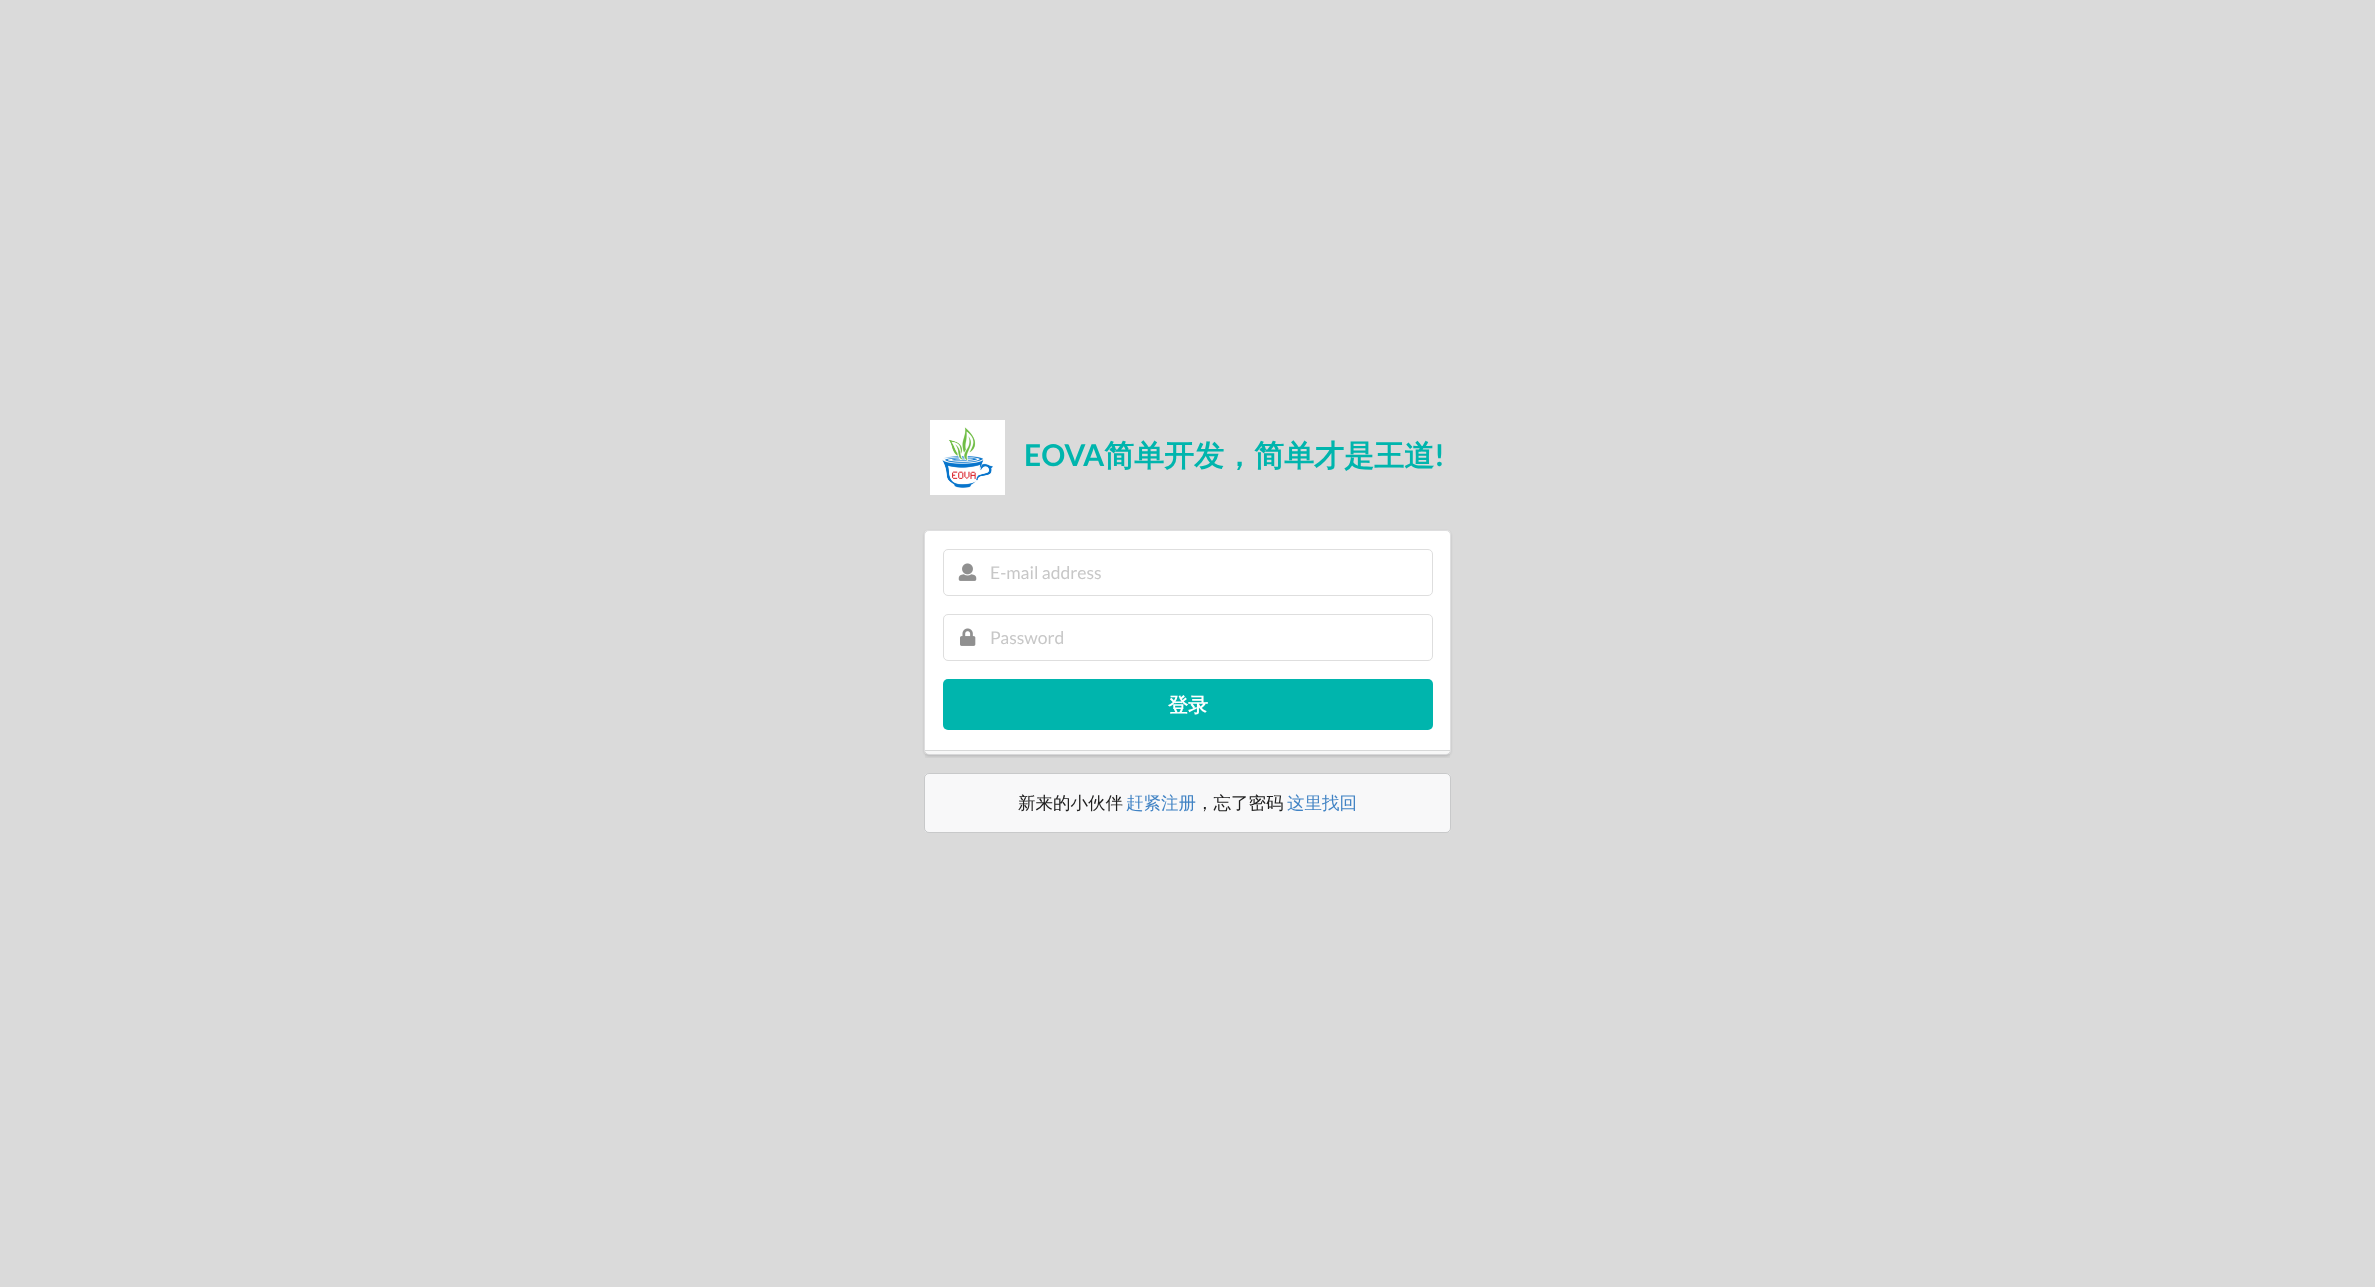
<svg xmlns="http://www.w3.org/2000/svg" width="2375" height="1287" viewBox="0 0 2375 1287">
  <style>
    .t1 { font: bold 30px Lato; fill: #00b5ad; }
    .t2 { font: bold 30px WenQuanYi Zen Hei; fill: #00b5ad; }
    .t3 { font: 17.5px Lato; fill: #c7c7c7; }
    .t4 { font: bold 20px WenQuanYi Zen Hei; fill: #fff; }
    .t5 { font: 500 17.5px WenQuanYi Zen Hei; fill: #202020; }
    .t6 { font: 500 17.5px WenQuanYi Zen Hei; fill: #4183c4; }
  </style>
  <rect width="100%" height="100%" fill="#dadada"/>
  <image x="930" y="420" width="75" height="75" href="images/1.png"/>
  <text x="1024" y="466" class="t1">EOVA</text>
  <text x="1104" y="466" class="t2">简单开发，简单才是王道</text>
  <text x="1434" y="466" class="t1">!</text>
  <rect x="924" y="531" width="527" height="225" rx="5" fill="#22242626" filter="blur(1px)"/>
  <rect x="924" y="530" width="527" height="225" rx="5" fill="#fff"/>
  <rect x="924.5" y="530.5" width="526" height="224" rx="4.5" fill="none" stroke="#22242626"/>
  <rect x="943.5" y="549.5" width="489" height="46" rx="4.5" fill="none" stroke="#dedede"/>
  <image x="958" y="563" width="19" height="18" href="images/2.png"/>
  <text x="990" y="579" class="t3">E-mail address</text>
  <rect x="943.5" y="614.5" width="489" height="46" rx="4.5" fill="none" stroke="#dedede"/>
  <image x="960" y="628" width="16" height="18" href="images/3.png"/>
  <text x="990" y="644" class="t3">Password</text>
  <rect x="943" y="679" width="490" height="51" rx="5" fill="#00b5ad"/>
  <text x="1168" y="712" class="t4">登录</text>
  <rect x="925" y="751" width="525" height="7" fill="#00000008"/>
  <rect x="925" y="750" width="525" height="1" fill="#d7d8d8"/>
  <rect x="924" y="773" width="527" height="60" rx="5" fill="#f8f8f9"/>
  <rect x="924.5" y="773.5" width="526" height="59" rx="4.5" fill="none" stroke="#22242638"/>
  <text x="1018" y="809" class="t5">新来的小伙伴</text>
  <text x="1126" y="809" class="t6">赶紧注册</text>
  <text x="1196" y="809" class="t5">，忘了密码</text>
  <text x="1287" y="809" class="t6">这里找回</text>
</svg>
